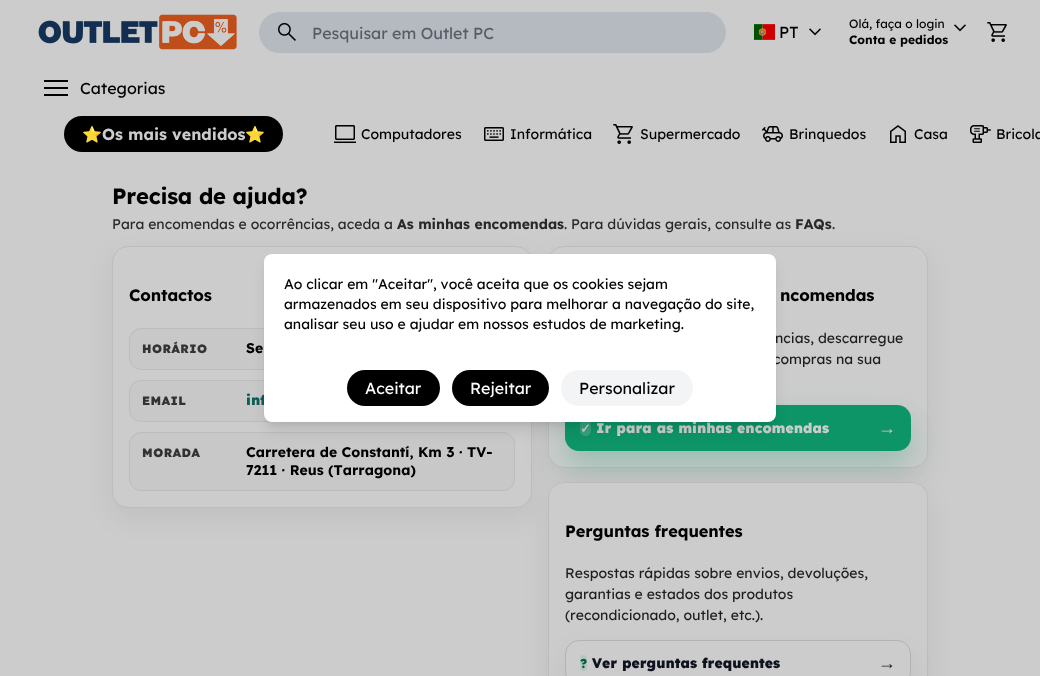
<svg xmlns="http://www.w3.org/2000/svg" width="1040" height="676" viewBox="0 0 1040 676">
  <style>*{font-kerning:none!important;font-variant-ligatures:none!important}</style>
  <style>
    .t1 { font: 16px Lexend Deca; fill: #565b66; }
    .t2 { font: 16px Lexend Deca; fill: #000; }
    .t3 { font: 12px Lexend Deca; fill: #000; }
    .t4 { font: bold 12px Lexend Deca; fill: #000; }
    .t5 { font: bold 16px Noto Color Emoji; fill: #ccc; }
    .t6 { font: bold 16px Lexend Deca; fill: #ccc; }
    .t7 { font: 14px Lexend Deca; fill: #000; }
    .t8 { font: bold 22px Lexend Deca; letter-spacing: -0.25px; fill: #000; }
    .t9 { font: 14px Lexend Deca; fill: #292929; }
    .t10 { font: bold 14px Lexend Deca; fill: #292929; }
    .t11 { font: bold 16.4px Lexend Deca; letter-spacing: -0.1px; fill: #000; }
    .t12 { font: 900 12px Lexend Deca; letter-spacing: 0.5px; fill: #323232; }
    .t13 { font: bold 14px Lexend Deca; fill: #000; }
    .t14 { font: 900 14px Lexend Deca; fill: #0c5e58; }
    .t15 { font: 14px Lexend Deca; fill: #1e1e1e; }
    .t16 { font: bold 13px DejaVu Sans; fill: #ccc; }
    .t17 { font: 900 14px Lexend Deca; fill: #ccc; }
    .t18 { font: bold 18px Liberation Serif; fill: #c2cac7; }
    .t19 { font: 900 13px Lexend Deca; fill: #036046; }
    .t20 { font: 900 14px Lexend Deca; fill: #0e131f; }
    .t21 { font: bold 18px Liberation Serif; fill: #171d28; }
    .t22 { font: 16px Lexend Deca; fill: #fff; }
  </style>
  <rect width="100%" height="100%" fill="#ccc"/>
  <image x="38" y="14" width="199" height="36" href="images/1.png"/>
  <rect x="259" y="12" width="467" height="41" rx="20.5" fill="#b5bac0"/>
  <image x="278" y="23" width="18" height="18" href="images/2.png"/>
  <rect x="299" y="12" width="411" height="1" fill="#b7b9bc"/>
  <rect x="709" y="12" width="1" height="41" fill="#b7b9bc"/>
  <rect x="299" y="12" width="1" height="41" fill="#b7b9bc"/>
  <text x="312" y="39" class="t1">Pesquisar em Outlet PC</text>
  <image x="754" y="24" width="21" height="16" href="images/3.png"/>
  <text x="779" y="38" class="t2">PT</text>
  <image x="809" y="28" width="12" height="8" href="images/4.png"/>
  <text x="849" y="28" class="t3">Olá, faça o login</text>
  <text x="849" y="44" class="t4">Conta e pedidos</text>
  <image x="954" y="24" width="12" height="8" href="images/4.png"/>
  <image x="987" y="22" width="20" height="20" href="images/5.png"/>
  <image x="44" y="80" width="24" height="16" href="images/6.png"/>
  <text x="80" y="94" class="t2">Categorias</text>
  <rect x="64" y="116" width="219" height="36" rx="18" fill="#000"/>
  <text x="82" y="140" class="t5">⭐</text>
  <text x="102" y="140" class="t6">Os mais vendidos</text>
  <text x="245" y="140" class="t5">⭐</text>
  <image x="334" y="125" width="22" height="18" href="images/7.png"/>
  <text x="361" y="139" class="t7">Computadores</text>
  <image x="484" y="127" width="20" height="14" href="images/8.png"/>
  <text x="510" y="139" class="t7">Informática</text>
  <image x="613" y="124" width="20" height="20" href="images/5.png"/>
  <text x="640" y="139" class="t7">Supermercado</text>
  <image x="762" y="126" width="21" height="16" href="images/9.png"/>
  <text x="789" y="139" class="t7">Brinquedos</text>
  <image x="890" y="125" width="16" height="18" href="images/10.png"/>
  <text x="914" y="139" class="t7">Casa</text>
  <image x="970" y="125" width="21" height="18" href="images/11.png"/>
  <text x="996" y="139" class="t7">Bricola</text>
  <text x="112" y="204" class="t8">Precisa de ajuda?</text>
  <rect x="112" y="256" width="420" height="262" rx="16" fill="#0000000f" filter="blur(13px)"/>
  <text x="112" y="229" class="t9">Para encomendas e ocorrências, aceda a</text>
  <rect x="112.5" y="246.5" width="419" height="261" rx="15.5" fill="#ccc" stroke="#bcbcbc"/>
  <rect x="129.5" y="328.5" width="385" height="41" rx="11.5" fill="#c8c8c8" stroke="#bcbcbc"/>
  <rect x="129.5" y="380.5" width="385" height="41" rx="11.5" fill="#c8c8c8" stroke="#bcbcbc"/>
  <rect x="129.5" y="432.5" width="385" height="58" rx="11.5" fill="#c8c8c8" stroke="#bcbcbc"/>
  <rect x="548" y="256" width="380" height="222" rx="16" fill="#0000000f" filter="blur(13px)"/>
  <text x="397" y="229" class="t10">As minhas encomendas</text>
  <text x="564" y="229" class="t9">. Para dúvidas gerais, consulte as</text>
  <text x="795" y="229" class="t10">FAQs</text>
  <text x="832" y="229" class="t9">.</text>
  <text x="129" y="301" class="t11">Contactos</text>
  <text x="142" y="353" class="t12">HORÁRIO</text>
  <text x="246" y="353" class="t13">Se</text>
  <text x="142" y="405" class="t12">EMAIL</text>
  <text x="246" y="405" class="t14">inf</text>
  <text x="142" y="457" class="t12">MORADA</text>
  <text x="246" y="457" class="t13">Carretera de Constantí, Km 3 · TV-</text>
  <text x="246" y="475" class="t13">7211 · Reus (Tarragona)</text>
  <rect x="548.5" y="246.5" width="379" height="221" rx="15.5" fill="#ccc" stroke="#bcbcbc"/>
  <text x="780" y="301" class="t11">ncomendas</text>
  <text x="775" y="343" class="t15">ncias, descarregue</text>
  <text x="773" y="364" class="t15">compras na sua</text>
  <rect x="565" y="419" width="346" height="46" rx="14" fill="#0d946742" filter="blur(14px)"/>
  <rect x="565" y="405" width="346" height="46" rx="14" fill="#0d9467"/>
  <rect x="580" y="420" width="11" height="16" rx="5.5" fill="#37a07e"/>
  <text x="580" y="433" class="t16">✓</text>
  <text x="596" y="433" class="t17">Ir para as minhas encomendas</text>
  <text x="878" y="434" class="t18">→</text>
  <rect x="548" y="492" width="380" height="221" rx="16" fill="#0000000f" filter="blur(13px)"/>
  <rect x="548" y="482" width="380" height="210" rx="16" fill="#ccc"/>
  <rect x="548.5" y="482.5" width="379" height="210" rx="15.5" fill="none" stroke="#00000014"/>
  <text x="565" y="537" class="t11">Perguntas frequentes</text>
  <text x="565" y="578" class="t15">Respostas rápidas sobre envios, devoluções,</text>
  <text x="565" y="599" class="t15">garantias e estados dos produtos</text>
  <rect x="565" y="652" width="346" height="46" rx="14" fill="#0000000f" filter="blur(12px)"/>
  <text x="565" y="620" class="t15">(recondicionado, outlet, etc.).</text>
  <rect x="565.5" y="640.5" width="345" height="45" rx="13.5" fill="#ccc" stroke="#b3b3b3"/>
  <rect x="580" y="655" width="7" height="16" rx="3.5" fill="#b5c6c0"/>
  <text x="580" y="668" class="t19">?</text>
  <text x="592" y="668" class="t20">Ver perguntas frequentes</text>
  <text x="878" y="669" class="t21">→</text>
  <rect x="268" y="262" width="504" height="160" rx="4" fill="#0000001a" filter="blur(3px)"/>
  <rect x="267" y="267" width="506" height="162" rx="5" fill="#0000001a" filter="blur(7.5px)"/>
  <rect x="264" y="254" width="512" height="168" rx="8" fill="#fff"/>
  <text x="284" y="289" class="t7">Ao clicar em "Aceitar", você aceita que os cookies sejam</text>
  <text x="284" y="309" class="t7">armazenados em seu dispositivo para melhorar a navegação do site,</text>
  <text x="284" y="329" class="t7">analisar seu uso e ajudar em nossos estudos de marketing.</text>
  <rect x="347" y="370" width="93" height="36" rx="18" fill="#000"/>
  <text x="365" y="394" class="t22">Aceitar</text>
  <rect x="452" y="370" width="97" height="36" rx="18" fill="#000"/>
  <text x="470" y="394" class="t22">Rejeitar</text>
  <rect x="561" y="370" width="132" height="36" rx="18" fill="#f3f4f6"/>
  <text x="579" y="394" class="t2">Personalizar</text>
</svg>
